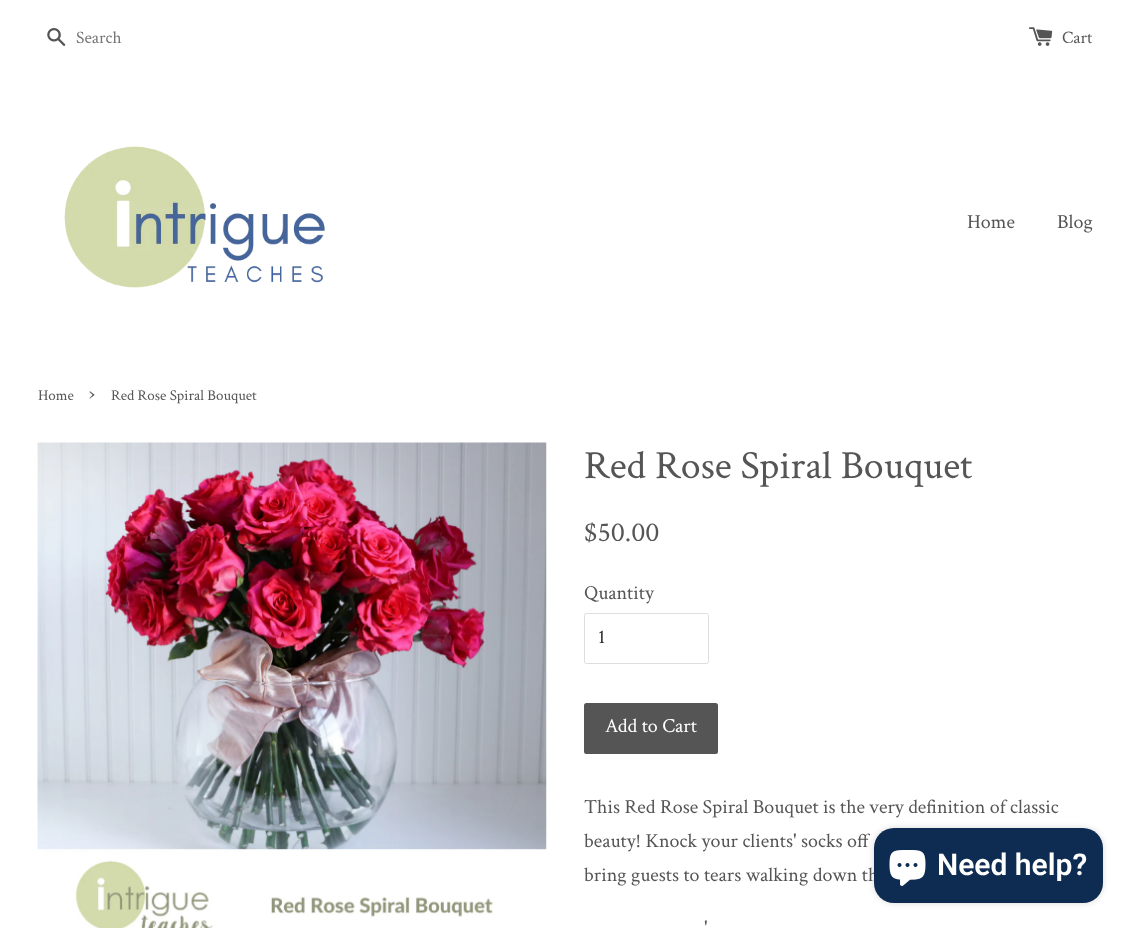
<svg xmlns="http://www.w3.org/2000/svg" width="1130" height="928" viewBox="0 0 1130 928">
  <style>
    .t1 { font: 17.5px Crimson Text; fill: #757575; }
    .t2 { font: 17.5px Crimson Text; fill: #555; }
    .t3 { font: 20px Crimson Text; fill: #555; }
    .t4 { font: 15px Crimson Text; fill: #555; }
    .t5 { font: 21px Crimson Text; fill: #555; }
    .t6 { font: 40px Crimson Text; fill: #555; }
    .t7 { font: 28px Crimson Text; fill: #555; }
    .t8 { font: 20px Crimson Text; fill: #333; }
    .t9 { font: 20px Crimson Text; fill: #fff; }
    .t10 { font: 600 30px Roboto; fill: #fff; }
  </style>
  <rect width="100%" height="100%" fill="#fff"/>
  <image x="47" y="28" width="19" height="18" href="images/1.png"/>
  <text x="76" y="43" class="t1">Search</text>
  <image x="1029" y="27" width="24" height="19" href="images/2.png"/>
  <text x="1062" y="43" class="t2">Cart</text>
  <image x="64" y="146" width="261" height="142" href="images/3.png"/>
  <text x="967" y="228" class="t3">Home</text>
  <text x="1057" y="228" class="t3">Blog</text>
  <text x="38" y="400" class="t4">Home</text>
  <text x="89" y="400" class="t5">›</text>
  <text x="111" y="400" class="t4">Red Rose Spiral Bouquet</text>
  <image x="37" y="442" width="510" height="486" href="images/4.png"/>
  <text x="584" y="478" class="t6">Red Rose Spiral Bouquet</text>
  <text x="584" y="541" class="t7">$50.00</text>
  <text x="584" y="599" class="t3">Quantity</text>
  <rect x="584.5" y="613.5" width="124" height="50" rx="2" fill="none" stroke="#ddd"/>
  <text x="598" y="643" class="t8">1</text>
  <rect x="584" y="703" width="134" height="51" rx="2.5" fill="#555"/>
  <text x="605" y="732" class="t9">Add to Cart</text>
  <text x="584" y="813" class="t3">This Red Rose Spiral Bouquet is the very definition of classic</text>
  <text x="584" y="847" class="t3">beauty! Knock your clients' socks off</text>
  <text x="584" y="881" class="t3">bring guests to tears walking down th</text>
  <text x="704" y="934" class="t3">'</text>
  <rect x="874" y="828" width="229" height="75" rx="20" fill="#00000026" filter="blur(3px)"/>
  <rect x="874" y="828" width="229" height="75" rx="20" fill="#0e2b52"/>
  <image x="889" y="850" width="37" height="36" href="images/5.png"/>
  <text x="937" y="875" class="t10">Need help?</text>
</svg>
